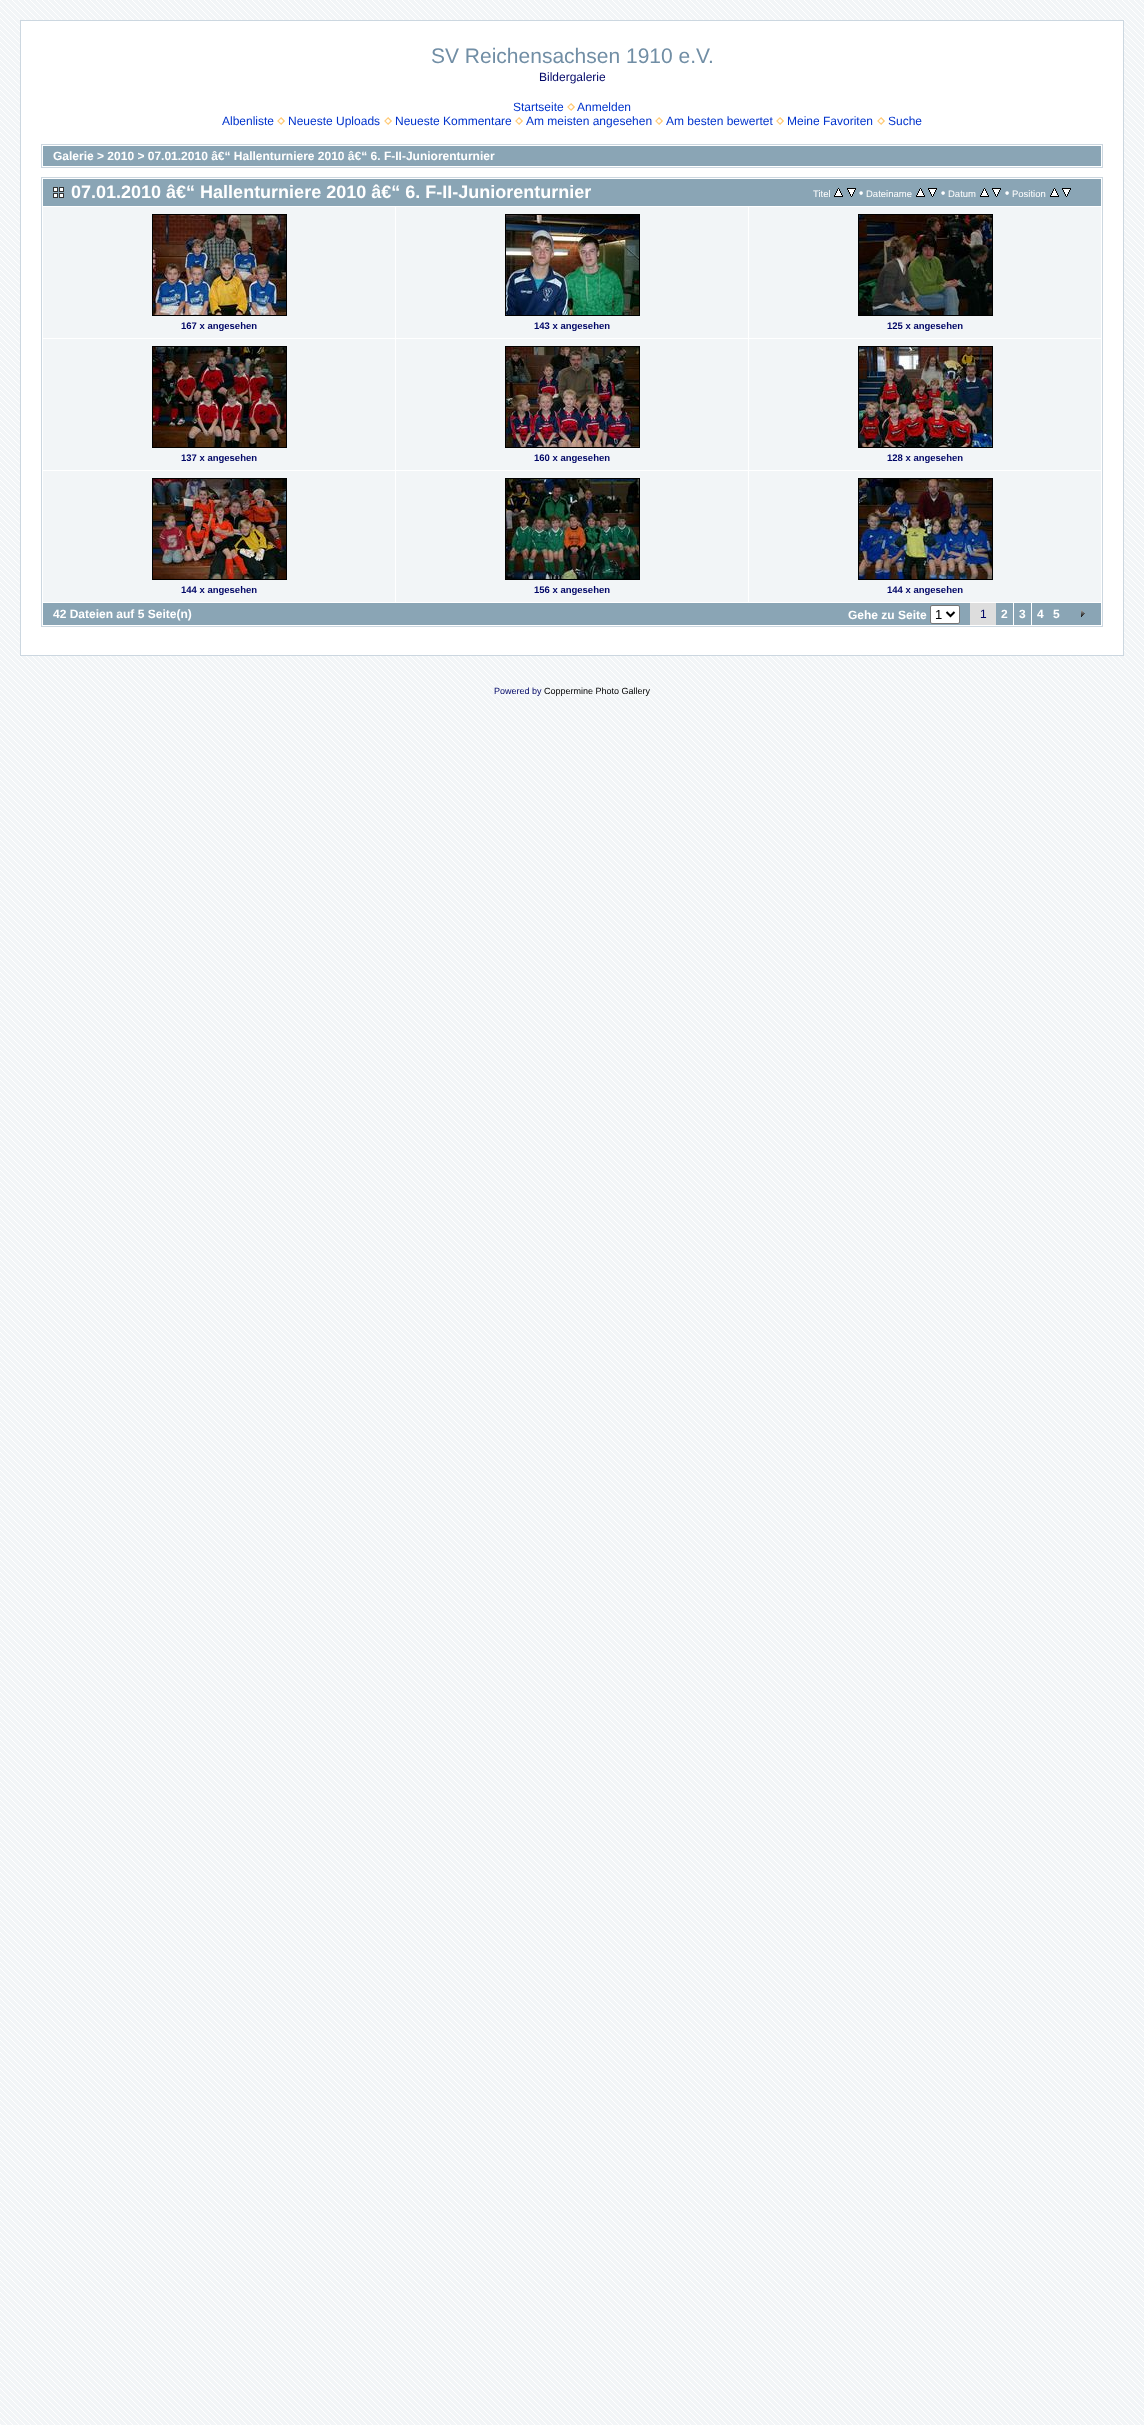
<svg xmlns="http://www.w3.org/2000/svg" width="1144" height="2425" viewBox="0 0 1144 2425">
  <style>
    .t1 { font: 21px Liberation Sans; fill: #718ea5; }
    .t2 { font: 12px Liberation Sans; fill: #000666; }
    .t3 { font: 12px Liberation Sans; fill: #03c; }
    .t4 { font: bold 12px Liberation Sans; fill: #fff; }
    .t5 { font: bold 18px Liberation Sans; fill: #fff; }
    .t6 { font: 9.5px Liberation Sans; fill: #fff; }
    .t7 { font: bold 9.5px Liberation Sans; fill: #000666; }
    .t8 { font: 13px Liberation Sans; fill: #000; }
    .t9 { font: 9px Liberation Sans; fill: #000666; }
    .t10 { font: 9px Liberation Sans; fill: #000; }
  </style>
  <rect width="100%" height="100%" fill="#f2f5f7"/>
  <image x="0" y="0" width="1144" height="2425" href="images/1.png"/>
  <rect x="20.5" y="20.5" width="1103" height="635" fill="#fff" stroke="#ccd7e0"/>
  <text x="431" y="63" class="t1">SV Reichensachsen 1910 e.V.</text>
  <text x="539" y="81" class="t2">Bildergalerie</text>
  <text x="513" y="111" class="t3">Startseite</text>
  <image x="567" y="103" width="8" height="8" href="images/2.png"/>
  <text x="577" y="111" class="t3">Anmelden</text>
  <text x="222" y="125" class="t3">Albenliste</text>
  <image x="277" y="117" width="8" height="8" href="images/2.png"/>
  <text x="288" y="125" class="t3">Neueste Uploads</text>
  <image x="384" y="117" width="8" height="8" href="images/2.png"/>
  <text x="395" y="125" class="t3">Neueste Kommentare</text>
  <image x="515" y="117" width="8" height="8" href="images/2.png"/>
  <text x="526" y="125" class="t3">Am meisten angesehen</text>
  <image x="655" y="117" width="8" height="8" href="images/2.png"/>
  <text x="666" y="125" class="t3">Am besten bewertet</text>
  <image x="776" y="117" width="8" height="8" href="images/2.png"/>
  <text x="787" y="125" class="t3">Meine Favoriten</text>
  <image x="877" y="117" width="8" height="8" href="images/2.png"/>
  <text x="888" y="125" class="t3">Suche</text>
  <rect x="41.5" y="144.5" width="1061" height="23" fill="none" stroke="#ccd7e0"/>
  <rect x="43" y="146" width="1058" height="20" fill="#8aa5b5"/>
  <text x="53" y="160" class="t4">Galerie &gt; 2010 &gt; 07.01.2010 â€“ Hallenturniere 2010 â€“ 6. F-II-Juniorenturnier</text>
  <rect x="41.5" y="177.5" width="1061" height="449" fill="none" stroke="#ccd7e0"/>
  <rect x="43" y="179" width="1058" height="27" fill="#8aa5b5"/>
  <image x="53" y="187" width="11" height="11" href="images/3.png"/>
  <text x="71" y="198" class="t5">07.01.2010 â€“ Hallenturniere 2010 â€“ 6. F-II-Juniorenturnier</text>
  <text x="813" y="197" class="t6">Titel</text>
  <image x="834" y="188" width="9" height="9" href="images/4.png"/>
  <image x="847" y="188" width="9" height="9" href="images/5.png"/>
  <text x="859" y="197" class="t4">•</text>
  <text x="866" y="197" class="t6">Dateiname</text>
  <image x="916" y="188" width="9" height="9" href="images/4.png"/>
  <image x="928" y="188" width="9" height="9" href="images/5.png"/>
  <text x="941" y="197" class="t4">•</text>
  <text x="948" y="197" class="t6">Datum</text>
  <image x="980" y="188" width="9" height="9" href="images/4.png"/>
  <image x="992" y="188" width="9" height="9" href="images/5.png"/>
  <text x="1005" y="197" class="t4">•</text>
  <text x="1012" y="197" class="t6">Position</text>
  <image x="1050" y="188" width="9" height="9" href="images/4.png"/>
  <image x="1062" y="188" width="9" height="9" href="images/5.png"/>
  <rect x="43" y="207" width="352" height="131" fill="#f2f5f7"/>
  <rect x="152.5" y="214.5" width="134" height="101" fill="none" stroke="#000"/>
  <image x="153" y="215" width="133" height="100" href="images/6.png"/>
  <text x="181" y="329" class="t7">167 x angesehen</text>
  <rect x="396" y="207" width="352" height="131" fill="#f2f5f7"/>
  <rect x="505.5" y="214.5" width="134" height="101" fill="none" stroke="#000"/>
  <image x="506" y="215" width="133" height="100" href="images/7.png"/>
  <text x="534" y="329" class="t7">143 x angesehen</text>
  <rect x="749" y="207" width="352" height="131" fill="#f2f5f7"/>
  <rect x="858.5" y="214.5" width="134" height="101" fill="none" stroke="#000"/>
  <image x="859" y="215" width="133" height="100" href="images/8.png"/>
  <text x="887" y="329" class="t7">125 x angesehen</text>
  <rect x="43" y="339" width="352" height="131" fill="#f2f5f7"/>
  <rect x="152.5" y="346.5" width="134" height="101" fill="none" stroke="#000"/>
  <image x="153" y="347" width="133" height="100" href="images/9.png"/>
  <text x="181" y="461" class="t7">137 x angesehen</text>
  <rect x="396" y="339" width="352" height="131" fill="#f2f5f7"/>
  <rect x="505.5" y="346.5" width="134" height="101" fill="none" stroke="#000"/>
  <image x="506" y="347" width="133" height="100" href="images/10.png"/>
  <text x="534" y="461" class="t7">160 x angesehen</text>
  <rect x="749" y="339" width="352" height="131" fill="#f2f5f7"/>
  <rect x="858.5" y="346.5" width="134" height="101" fill="none" stroke="#000"/>
  <image x="859" y="347" width="133" height="100" href="images/11.png"/>
  <text x="887" y="461" class="t7">128 x angesehen</text>
  <rect x="43" y="471" width="352" height="131" fill="#f2f5f7"/>
  <rect x="152.5" y="478.5" width="134" height="101" fill="none" stroke="#000"/>
  <image x="153" y="479" width="133" height="100" href="images/12.png"/>
  <text x="181" y="593" class="t7">144 x angesehen</text>
  <rect x="396" y="471" width="352" height="131" fill="#f2f5f7"/>
  <rect x="505.5" y="478.5" width="134" height="101" fill="none" stroke="#000"/>
  <image x="506" y="479" width="133" height="100" href="images/13.png"/>
  <text x="534" y="593" class="t7">156 x angesehen</text>
  <rect x="749" y="471" width="352" height="131" fill="#f2f5f7"/>
  <rect x="858.5" y="478.5" width="134" height="101" fill="none" stroke="#000"/>
  <image x="859" y="479" width="133" height="100" href="images/14.png"/>
  <text x="887" y="593" class="t7">144 x angesehen</text>
  <rect x="43" y="603" width="927" height="22" fill="#8aa5b5"/>
  <text x="53" y="618" class="t4">42 Dateien auf 5 Seite(n)</text>
  <text x="848" y="619" class="t4">Gehe zu Seite</text>
  <rect x="930.5" y="605.5" width="29" height="18" rx="1.5" fill="#fff" stroke="#767676"/>
  <path d="M946.5 612L950.5 616L954.5 612" fill="none" stroke="#000" stroke-width="2"/>
  <text x="935" y="619" class="t8">1</text>
  <rect x="970" y="603" width="26" height="22" fill="#ddd"/>
  <text x="980" y="618" class="t2">1</text>
  <rect x="996" y="603" width="17" height="22" fill="#8aa5b5"/>
  <text x="1001" y="618" class="t4">2</text>
  <rect x="1014" y="603" width="17" height="22" fill="#8aa5b5"/>
  <text x="1019" y="618" class="t4">3</text>
  <rect x="1032" y="603" width="69" height="22" fill="#8aa5b5"/>
  <text x="1037" y="618" class="t4">4</text>
  <text x="1053" y="618" class="t4">5</text>
  <image x="1081" y="610" width="4" height="7" href="images/15.png"/>
  <text x="494" y="694" class="t9">Powered by</text>
  <text x="544" y="694" class="t10">Coppermine Photo Gallery</text>
</svg>
